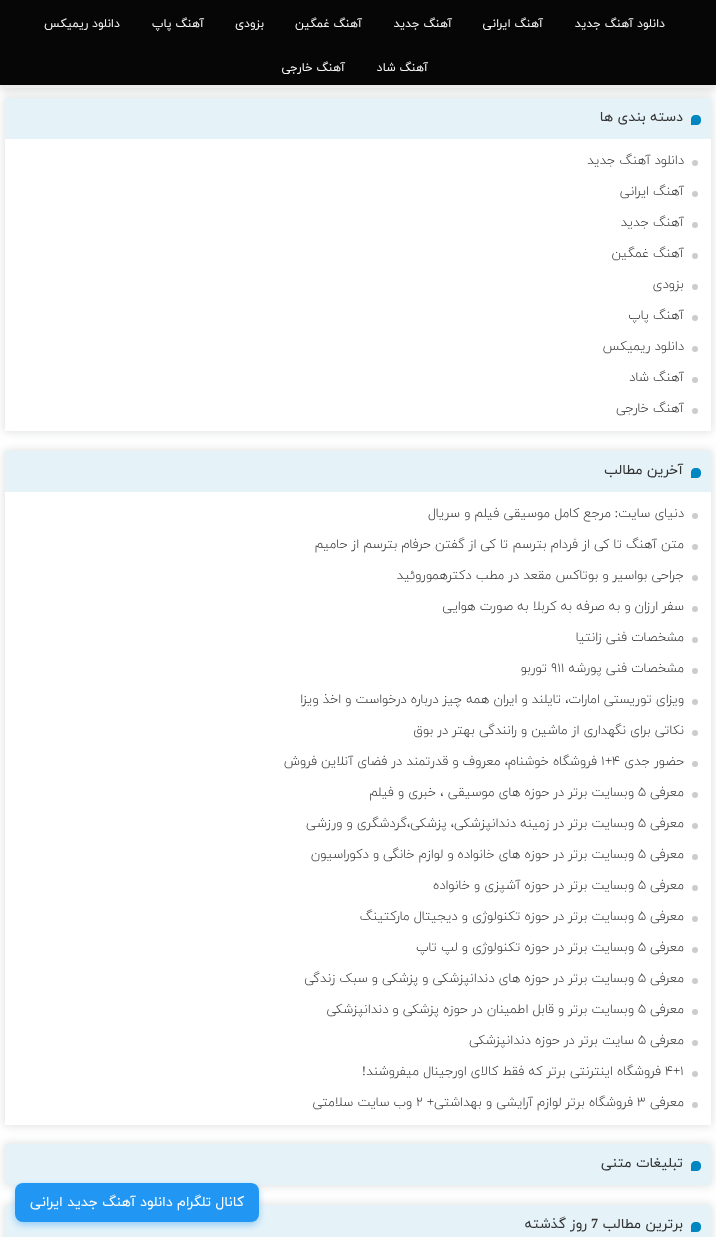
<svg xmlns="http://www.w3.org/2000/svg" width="716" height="1237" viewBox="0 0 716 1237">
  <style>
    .t1 { font: 12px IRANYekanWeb; direction: rtl; fill: #f5f4f4; }
    .t2 { font: 14px IRANYekanWeb; direction: rtl; fill: #333; }
    .t3 { font: 300 13px IRANYekanWeb; direction: rtl; fill: #333; }
    .t4 { font: 13px Liberation Serif; direction: rtl; fill: #333; }
    .t5 { font: 300 13px IRANYekanWeb; fill: #333; }
    .t6 { font: 13px Liberation Serif; fill: #333; }
    .t7 { font: bold 14px Liberation Serif; fill: #333; }
    .t8 { font: 14px IRANYekanWeb; direction: rtl; fill: #fff; }
  </style>
  <defs>
    <clipPath id="clip1"><path d="M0 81H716V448H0ZM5 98H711V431H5Z" clip-rule="evenodd"/></clipPath>
    <clipPath id="clip2"><path d="M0 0H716V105H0ZM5-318H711V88H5Z" clip-rule="evenodd"/></clipPath>
    <clipPath id="clip3"><path d="M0 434H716V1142H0ZM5 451H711V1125H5Z" clip-rule="evenodd"/></clipPath>
  </defs>
  <rect width="100%" height="100%" fill="#fff"/>
  <g clip-path="url(#clip1)">
    <rect x="4" y="97" width="708" height="335" fill="#dfe0e0" filter="blur(5px)"/>
  </g>
  <rect x="5" y="98" width="706" height="41" fill="#e5f3f9"/>
  <rect x="0" y="5" width="716" height="85" fill="#0000001a" filter="blur(5px)"/>
  <g clip-path="url(#clip2)">
    <rect x="4" y="-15" width="708" height="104" fill="#dfe0e0" filter="blur(5px)"/>
  </g>
  <rect x="0" y="0" width="716" height="85" fill="#060606"/>
  <text x="665" y="27" class="t1">دانلود آهنگ جدید</text>
  <text x="543" y="27" class="t1">آهنگ ایرانی</text>
  <text x="452" y="27" class="t1">آهنگ جدید</text>
  <text x="362" y="27" class="t1">آهنگ غمگین</text>
  <text x="264" y="27" class="t1">بزودی</text>
  <text x="204" y="27" class="t1">آهنگ پاپ</text>
  <text x="120" y="27" class="t1">دانلود ریمیکس</text>
  <text x="428" y="71" class="t1">آهنگ شاد</text>
  <text x="345" y="71" class="t1">آهنگ خارجی</text>
  <path d="M695 115H697C699 115 701 117 701 119V121C701 123 699 125 697 125H691V119C691 117 693 115 695 115Z" fill="#0087c1"/>
  <text x="683" y="121" class="t2">دسته بندی ها</text>
  <circle cx="695" cy="163" r="3" fill="#ccc"/>
  <text x="684" y="164" class="t3">دانلود آهنگ جدید</text>
  <circle cx="695" cy="194" r="3" fill="#ccc"/>
  <text x="684" y="195" class="t3">آهنگ ایرانی</text>
  <circle cx="695" cy="225" r="3" fill="#ccc"/>
  <text x="684" y="226" class="t3">آهنگ جدید</text>
  <circle cx="695" cy="256" r="3" fill="#ccc"/>
  <text x="684" y="257" class="t3">آهنگ غمگین</text>
  <circle cx="695" cy="287" r="3" fill="#ccc"/>
  <text x="684" y="288" class="t3">بزودی</text>
  <circle cx="695" cy="318" r="3" fill="#ccc"/>
  <text x="684" y="319" class="t3">آهنگ پاپ</text>
  <circle cx="695" cy="349" r="3" fill="#ccc"/>
  <text x="684" y="350" class="t3">دانلود ریمیکس</text>
  <circle cx="695" cy="380" r="3" fill="#ccc"/>
  <text x="684" y="381" class="t3">آهنگ شاد</text>
  <circle cx="695" cy="411" r="3" fill="#ccc"/>
  <text x="684" y="412" class="t3">آهنگ خارجی</text>
  <g clip-path="url(#clip3)">
    <rect x="4" y="450" width="708" height="676" fill="#dfe0e0" filter="blur(5px)"/>
  </g>
  <rect x="5" y="451" width="706" height="41" fill="#e5f3f9"/>
  <path d="M695 468H697C699 468 701 470 701 472V474C701 476 699 478 697 478H691V472C691 470 693 468 695 468Z" fill="#0087c1"/>
  <text x="683" y="474" class="t2">آخرین مطالب</text>
  <circle cx="695" cy="516" r="3" fill="#ccc"/>
  <text x="684" y="517" class="t3">دنیای سایت</text>
  <text x="618" y="517" class="t4">:</text>
  <text x="611" y="517" class="t3">مرجع کامل موسیقی فیلم و سریال</text>
  <circle cx="695" cy="547" r="3" fill="#ccc"/>
  <text x="684" y="548" class="t3">متن آهنگ تا کی از فردام بترسم تا کی از گفتن حرفام بترسم از حامیم</text>
  <circle cx="695" cy="578" r="3" fill="#ccc"/>
  <text x="684" y="579" class="t3">جراحی بواسیر و بوتاکس مقعد در مطب دکترهموروئید</text>
  <circle cx="695" cy="609" r="3" fill="#ccc"/>
  <text x="684" y="610" class="t3">سفر ارزان و به صرفه به کربلا به صورت هوایی</text>
  <circle cx="695" cy="640" r="3" fill="#ccc"/>
  <text x="684" y="641" class="t3">مشخصات فنی زانتیا</text>
  <circle cx="695" cy="671" r="3" fill="#ccc"/>
  <text x="684" y="672" class="t3">مشخصات فنی پورشه</text>
  <text x="551" y="672" class="t5">۹۱۱</text>
  <text x="547" y="672" class="t3">توربو</text>
  <circle cx="695" cy="702" r="3" fill="#ccc"/>
  <text x="684" y="703" class="t3">ویزای توریستی امارات، تایلند و ایران همه چیز درباره درخواست و اخذ ویزا</text>
  <circle cx="695" cy="733" r="3" fill="#ccc"/>
  <text x="684" y="734" class="t3">نکاتی برای نگهداری از ماشین و رانندگی بهتر در بوق</text>
  <circle cx="695" cy="764" r="3" fill="#ccc"/>
  <text x="684" y="765" class="t3">حضور جدی</text>
  <text x="612" y="765" class="t5">۴</text>
  <text x="605" y="765" class="t6">+</text>
  <text x="601" y="765" class="t5">۱</text>
  <text x="597" y="765" class="t3">فروشگاه خوشنام، معروف و قدرتمند در فضای آنلاین فروش</text>
  <circle cx="695" cy="795" r="3" fill="#ccc"/>
  <text x="684" y="796" class="t3">معرفی</text>
  <text x="638" y="796" class="t5">۵</text>
  <text x="634" y="796" class="t3">وبسایت برتر در حوزه های موسیقی ، خبری و فیلم</text>
  <circle cx="695" cy="826" r="3" fill="#ccc"/>
  <text x="684" y="827" class="t3">معرفی</text>
  <text x="638" y="827" class="t5">۵</text>
  <text x="634" y="827" class="t3">وبسایت برتر در زمینه دندانپزشکی، پزشکی،گردشگری و ورزشی</text>
  <circle cx="695" cy="857" r="3" fill="#ccc"/>
  <text x="684" y="858" class="t3">معرفی</text>
  <text x="638" y="858" class="t5">۵</text>
  <text x="634" y="858" class="t3">وبسایت برتر در حوزه های خانواده و لوازم خانگی و دکوراسیون</text>
  <circle cx="695" cy="888" r="3" fill="#ccc"/>
  <text x="684" y="889" class="t3">معرفی</text>
  <text x="638" y="889" class="t5">۵</text>
  <text x="634" y="889" class="t3">وبسایت برتر در حوزه آشپزی و خانواده</text>
  <circle cx="695" cy="919" r="3" fill="#ccc"/>
  <text x="684" y="920" class="t3">معرفی</text>
  <text x="638" y="920" class="t5">۵</text>
  <text x="634" y="920" class="t3">وبسایت برتر در حوزه تکنولوژی و دیجیتال مارکتینگ</text>
  <circle cx="695" cy="950" r="3" fill="#ccc"/>
  <text x="684" y="951" class="t3">معرفی</text>
  <text x="638" y="951" class="t5">۵</text>
  <text x="634" y="951" class="t3">وبسایت برتر در حوزه تکنولوژی و لپ تاپ</text>
  <circle cx="695" cy="981" r="3" fill="#ccc"/>
  <text x="684" y="982" class="t3">معرفی</text>
  <text x="638" y="982" class="t5">۵</text>
  <text x="634" y="982" class="t3">وبسایت برتر در حوزه های دندانپزشکی و پزشکی و سبک زندگی</text>
  <circle cx="695" cy="1012" r="3" fill="#ccc"/>
  <text x="684" y="1013" class="t3">معرفی</text>
  <text x="638" y="1013" class="t5">۵</text>
  <text x="634" y="1013" class="t3">وبسایت برتر و قابل اطمینان در حوزه پزشکی و دندانپزشکی</text>
  <circle cx="695" cy="1043" r="3" fill="#ccc"/>
  <text x="684" y="1044" class="t3">معرفی</text>
  <text x="638" y="1044" class="t5">۵</text>
  <text x="634" y="1044" class="t3">سایت برتر در حوزه دندانپزشکی</text>
  <circle cx="695" cy="1074" r="3" fill="#ccc"/>
  <text x="680" y="1075" class="t5">۱</text>
  <text x="673" y="1075" class="t6">+</text>
  <text x="665" y="1075" class="t5">۴</text>
  <text x="661" y="1075" class="t3">فروشگاه اینترنتی برتر که فقط کالای اورجینال میفروشند</text>
  <text x="366" y="1075" class="t4">!</text>
  <circle cx="695" cy="1105" r="3" fill="#ccc"/>
  <text x="684" y="1106" class="t3">معرفی</text>
  <text x="637" y="1106" class="t5">۳</text>
  <text x="633" y="1106" class="t3">فروشگاه برتر لوازم آرایشی و بهداشتی</text>
  <text x="434" y="1106" class="t4">+</text>
  <text x="416" y="1106" class="t5">۲</text>
  <text x="412" y="1106" class="t3">وب سایت سلامتی</text>
  <rect x="4" y="1143" width="708" height="43" fill="#dfe0e0" filter="blur(5px)"/>
  <rect x="5" y="1144" width="706" height="41" fill="#e5f3f9"/>
  <path d="M695 1161H697C699 1161 701 1163 701 1165V1167C701 1169 699 1171 697 1171H691V1165C691 1163 693 1161 695 1161Z" fill="#0087c1"/>
  <text x="683" y="1167" class="t2">تبلیغات متنی</text>
  <rect x="4" y="1204" width="708" height="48" fill="#dfe0e0" filter="blur(5px)"/>
  <rect x="5" y="1205" width="706" height="32" fill="#e5f3f9"/>
  <path d="M695 1222H697C699 1222 701 1224 701 1226V1228C701 1230 699 1232 697 1232H691V1226C691 1224 693 1222 695 1222Z" fill="#0087c1"/>
  <text x="683" y="1228" class="t2">برترین مطالب</text>
  <text x="591" y="1228" class="t7">7</text>
  <text x="587" y="1228" class="t2">روز گذشته</text>
  <rect x="15" y="1186" width="244" height="39" rx="8" fill="#2196f369" filter="blur(3.5px)"/>
  <rect x="15" y="1183" width="244" height="39" rx="8" fill="#2196f3"/>
  <text x="244" y="1206" class="t8">کانال تلگرام دانلود آهنگ جدید ایرانی</text>
</svg>
